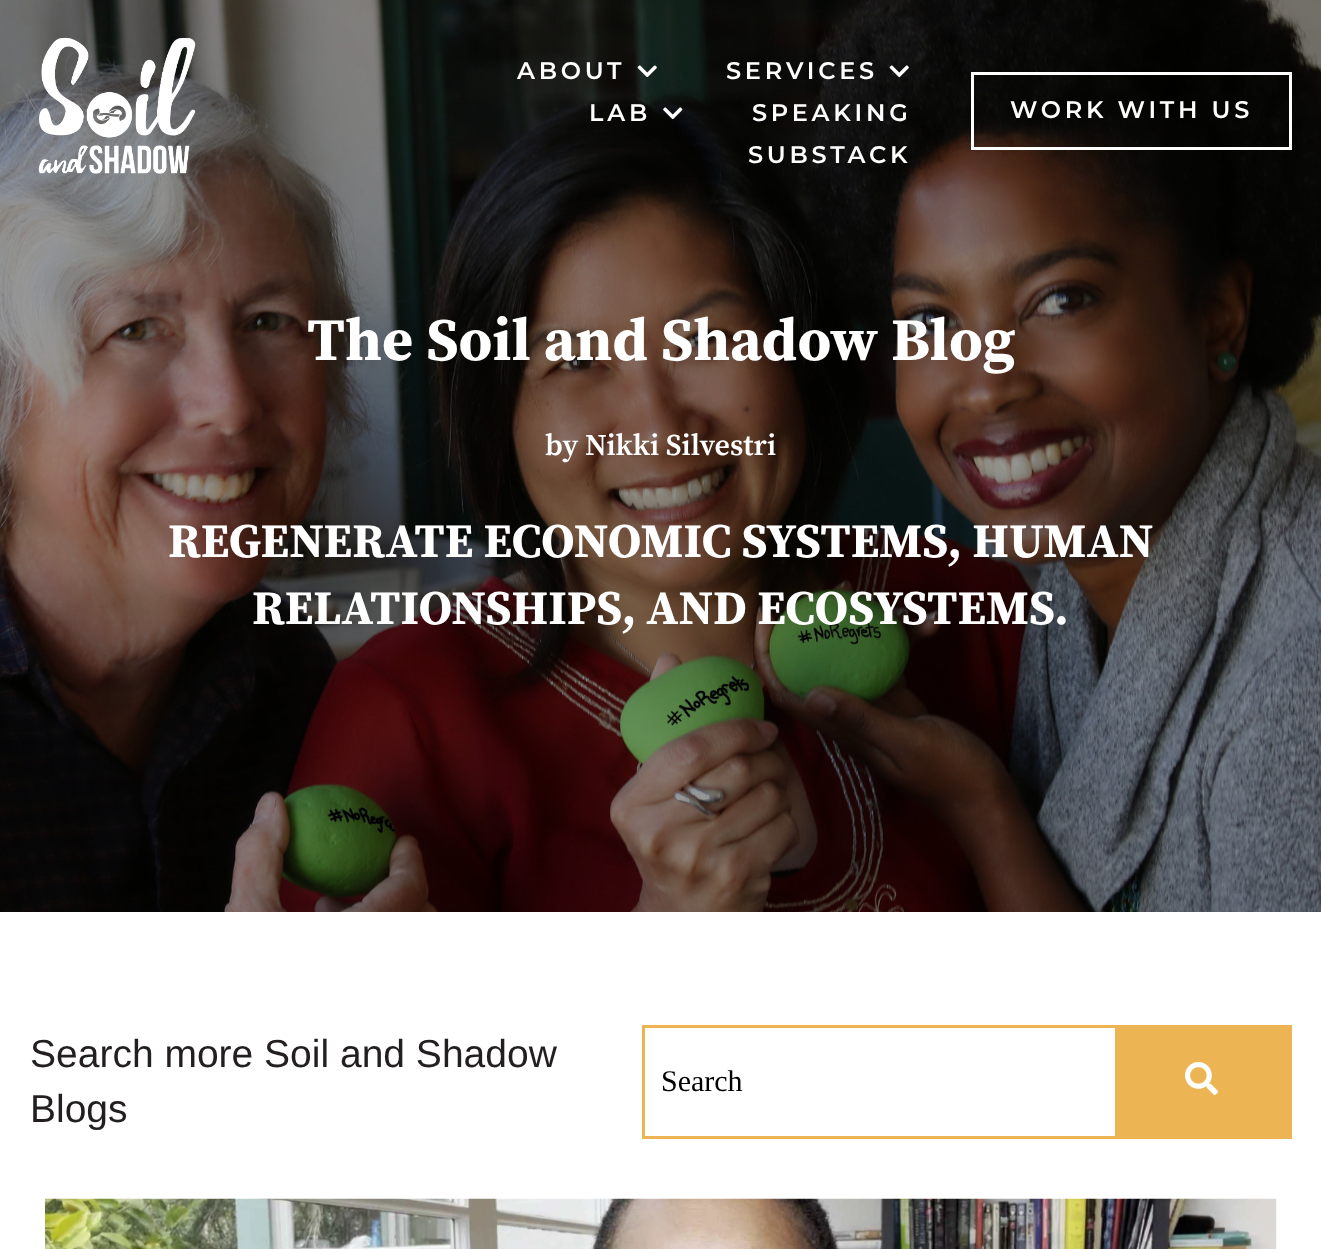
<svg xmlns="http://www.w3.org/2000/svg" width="1321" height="1249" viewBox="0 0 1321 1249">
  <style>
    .t1 { font: 600 24px Montserrat; letter-spacing: 3.75px; fill: #fff; }
    .t2 { font: bold 60px Source Serif Pro; fill: #fff; }
    .t3 { font: 600 30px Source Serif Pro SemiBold; fill: #fff; }
    .t4 { font: bold 48px Source Serif Pro; fill: #fff; }
    .t5 { font: 39px Liberation Sans; fill: #231f20; }
    .t6 { font: 30px Liberation Serif; fill: #000; }
  </style>
  <rect width="100%" height="100%" fill="#fff"/>
  <image x="0" y="0" width="1321" height="912" href="images/5.png"/>
  <image x="38" y="37" width="158" height="137" href="images/1.png"/>
  <text x="517" y="79" class="t1">ABOUT</text>
  <image x="637" y="65" width="20" height="13" href="images/2.png"/>
  <text x="726" y="79" class="t1">SERVICES</text>
  <image x="889" y="65" width="20" height="13" href="images/3.png"/>
  <text x="589" y="121" class="t1">LAB</text>
  <image x="663" y="107" width="20" height="13" href="images/4.png"/>
  <text x="752" y="121" class="t1">SPEAKING</text>
  <text x="748" y="163" class="t1">SUBSTACK</text>
  <rect x="972.5" y="73.5" width="318" height="75" fill="none" stroke="#fff" stroke-width="3"/>
  <text x="1010" y="118" class="t1">WORK WITH US</text>
  <text x="307" y="360" class="t2">The Soil and Shadow Blog</text>
  <text x="545" y="455" class="t3">by Nikki Silvestri</text>
  <text x="168" y="557" class="t4">REGENERATE ECONOMIC SYSTEMS, HUMAN</text>
  <text x="252" y="624" class="t4">RELATIONSHIPS, AND ECOSYSTEMS.</text>
  <text x="30" y="1067" class="t5">Search more Soil and Shadow</text>
  <text x="30" y="1122" class="t5">Blogs</text>
  <rect x="643.5" y="1026.5" width="647" height="111" fill="none" stroke="#edb453" stroke-width="3"/>
  <text x="661" y="1091" class="t6">Search</text>
  <rect x="1115" y="1028" width="174" height="108" fill="#edb453"/>
  <image x="1185" y="1062" width="33" height="33" href="images/6.png"/>
  <image x="45" y="1198" width="1232" height="51" href="images/7.png"/>
</svg>
